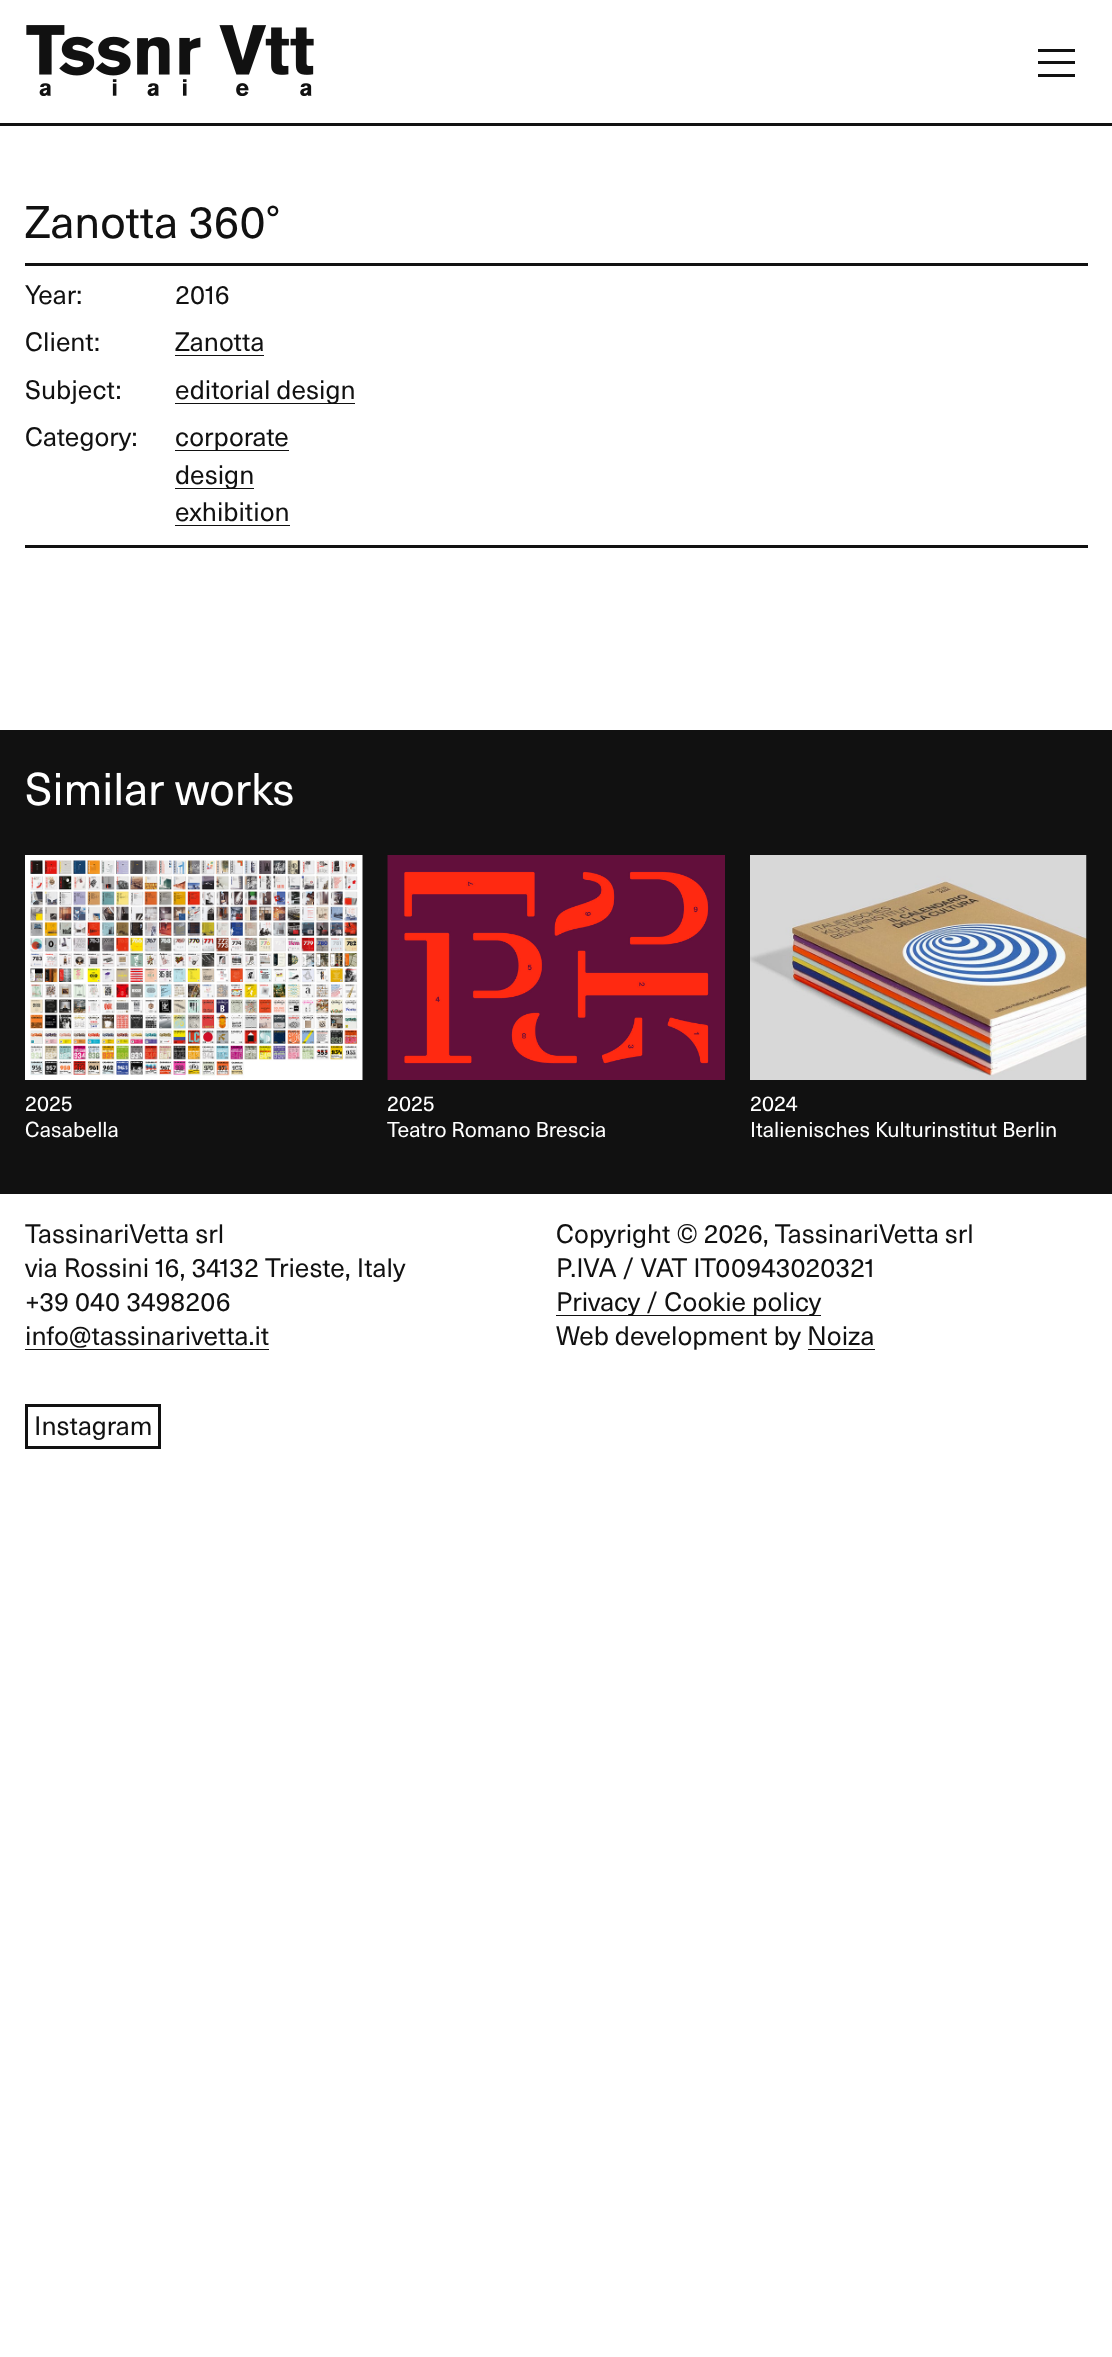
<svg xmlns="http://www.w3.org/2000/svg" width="1112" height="2357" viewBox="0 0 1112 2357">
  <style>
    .t1 { font: 45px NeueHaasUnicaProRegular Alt; fill: #111; }
    .t2 { font: 26.25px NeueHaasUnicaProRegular; fill: #111; }
    .t3 { font: 26.25px NeueHaasUnicaProRegular Alt; fill: #111; }
    .t4 { font: 45px NeueHaasUnicaProRegular; fill: #fff; }
    .t5 { font: 21.25px NeueHaasUnicaProRegular; fill: #fff; }
  </style>
  <rect width="100%" height="100%" fill="#fff"/>
  <rect x="0" y="123" width="1112" height="3" fill="#111"/>
  <image x="26" y="25" width="288" height="71" href="images/1.png"/>
  <rect x="1038" y="61" width="37" height="3" fill="#111"/>
  <rect x="1038" y="49" width="37" height="3" fill="#111"/>
  <rect x="1038" y="74" width="37" height="3" fill="#111"/>
  <rect x="25" y="263" width="1063" height="3" fill="#111"/>
  <text x="25" y="238" class="t1">Zanotta 360°</text>
  <rect x="25" y="545" width="1063" height="3" fill="#111"/>
  <text x="25" y="304" class="t2">Year:</text>
  <text x="175" y="304" class="t3">2016</text>
  <text x="25" y="351" class="t2">Client:</text>
  <text x="175" y="351" class="t2">Zanotta</text>
  <rect x="175" y="355" width="89" height="1" fill="#111"/>
  <text x="25" y="399" class="t2">Subject:</text>
  <rect x="175" y="403" width="180" height="1" fill="#111"/>
  <text x="175" y="399" class="t2">editorial design</text>
  <text x="25" y="446" class="t2">Category:</text>
  <rect x="175" y="450" width="114" height="1" fill="#111"/>
  <text x="175" y="446" class="t2">corporate</text>
  <rect x="175" y="488" width="79" height="1" fill="#111"/>
  <text x="175" y="484" class="t2">design</text>
  <text x="175" y="521" class="t2">exhibition</text>
  <rect x="175" y="525" width="115" height="1" fill="#111"/>
  <rect x="0" y="730" width="1112" height="464" fill="#111"/>
  <text x="25" y="805" class="t4">Similar works</text>
  <image x="25" y="855" width="338" height="225" href="images/2.png"/>
  <text x="25" y="1111" class="t5">2025</text>
  <text x="25" y="1137" class="t5">Casabella</text>
  <image x="387" y="855" width="338" height="225" href="images/3.png"/>
  <text x="387" y="1111" class="t5">2025</text>
  <text x="387" y="1137" class="t5">Teatro Romano Brescia</text>
  <image x="750" y="855" width="337" height="225" href="images/4.png"/>
  <text x="750" y="1111" class="t5">2024</text>
  <text x="750" y="1137" class="t5">Italienisches Kulturinstitut Berlin</text>
  <text x="25" y="1243" class="t2">TassinariVetta srl</text>
  <text x="25" y="1277" class="t3">via Rossini 16, 34132 Trieste, Italy</text>
  <text x="25" y="1311" class="t3">+39 040 3498206</text>
  <text x="25" y="1345" class="t2">info@tassinarivetta.it</text>
  <rect x="25" y="1349" width="244" height="1" fill="#111"/>
  <text x="556" y="1243" class="t2">Copyright © 2026, TassinariVetta srl</text>
  <text x="556" y="1277" class="t3">P.IVA / VAT IT00943020321</text>
  <rect x="556" y="1315" width="265" height="1" fill="#111"/>
  <text x="556" y="1311" class="t2">Privacy / Cookie policy</text>
  <text x="556" y="1345" class="t2">Web development by Noiza</text>
  <rect x="808" y="1349" width="67" height="1" fill="#111"/>
  <rect x="26.5" y="1405.5" width="133" height="42" fill="none" stroke="#111" stroke-width="3"/>
  <text x="34" y="1435" class="t2">Instagram</text>
</svg>
